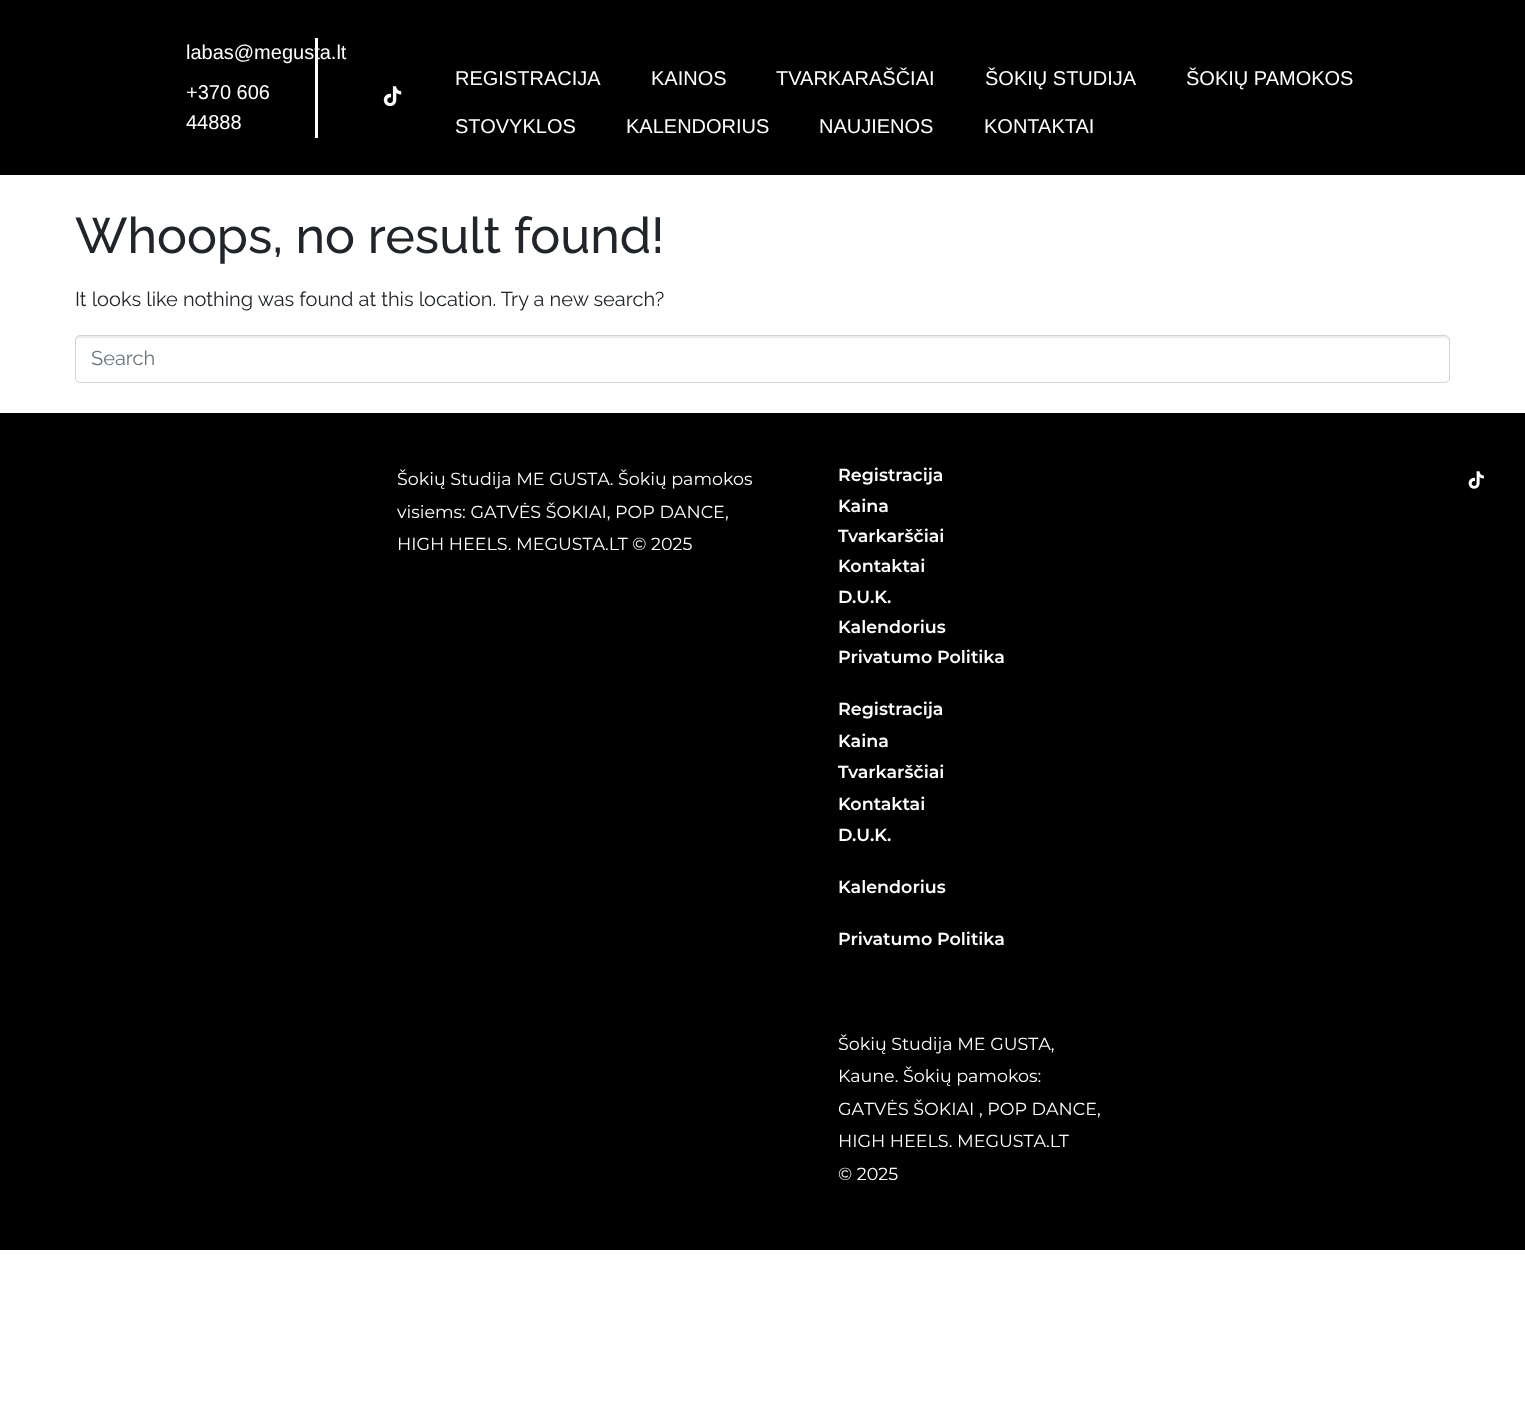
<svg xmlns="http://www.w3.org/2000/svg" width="1525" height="1407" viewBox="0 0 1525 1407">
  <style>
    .t1 { font: 20px Liberation Sans; fill: #fff; }
    .t2 { font: 500 50px Raleway; fill: #212529; }
    .t3 { font: 20px Raleway; fill: #212529; }
    .t4 { font: 20px Raleway; fill: #6c757d; }
    .t5 { font: 17.5px Montserrat; fill: #fff; }
    .t6 { font: 600 17.5px Montserrat; fill: #fff; }
  </style>
  <rect width="100%" height="100%" fill="#fff"/>
  <rect x="0" y="0" width="1525" height="175" fill="#000"/>
  <rect x="315" y="38" width="3" height="100" fill="#fff"/>
  <text x="186" y="59" class="t1">labas@megusta.lt</text>
  <text x="186" y="99" class="t1">+370 606</text>
  <text x="186" y="129" class="t1">44888</text>
  <image x="383" y="86" width="19" height="20" href="images/1.png"/>
  <text x="455" y="85" class="t1">REGISTRACIJA</text>
  <text x="651" y="85" class="t1">KAINOS</text>
  <text x="776" y="85" class="t1">TVARKARAŠČIAI</text>
  <text x="985" y="85" class="t1">ŠOKIŲ STUDIJA</text>
  <text x="1186" y="85" class="t1">ŠOKIŲ PAMOKOS</text>
  <text x="455" y="133" class="t1">STOVYKLOS</text>
  <text x="626" y="133" class="t1">KALENDORIUS</text>
  <text x="819" y="133" class="t1">NAUJIENOS</text>
  <text x="984" y="133" class="t1">KONTAKTAI</text>
  <text x="75" y="253" class="t2">Whoops, no result found!</text>
  <text x="75" y="306" class="t3">It looks like nothing was found at this location. Try a new search?</text>
  <path d="M80 338H1445C1447 338 1449 339 1449 341V340C1449 338 1447 336 1445 336H80C78 336 76 338 76 340V341C76 339 78 338 80 338Z" fill="#ececec"/>
  <rect x="75.5" y="335.5" width="1374" height="47" rx="4.5" fill="none" stroke="#ced4da"/>
  <text x="91" y="365" class="t4">Search</text>
  <rect x="0" y="413" width="1525" height="837" fill="#000"/>
  <text x="397" y="485" class="t5">Šokių Studija ME GUSTA. Šokių pamokos</text>
  <text x="397" y="518" class="t5">visiems: GATVĖS ŠOKIAI, POP DANCE,</text>
  <text x="397" y="550" class="t5">HIGH HEELS. MEGUSTA.LT © 2025</text>
  <text x="838" y="481" class="t6">Registracija</text>
  <text x="838" y="512" class="t6">Kaina</text>
  <text x="838" y="542" class="t6">Tvarkarščiai</text>
  <text x="838" y="572" class="t6">Kontaktai</text>
  <text x="838" y="603" class="t6">D.U.K.</text>
  <text x="838" y="633" class="t6">Kalendorius</text>
  <text x="838" y="663" class="t6">Privatumo Politika</text>
  <text x="838" y="715" class="t6">Registracija</text>
  <text x="838" y="747" class="t6">Kaina</text>
  <text x="838" y="778" class="t6">Tvarkarščiai</text>
  <text x="838" y="810" class="t6">Kontaktai</text>
  <text x="838" y="841" class="t6">D.U.K.</text>
  <text x="838" y="893" class="t6">Kalendorius</text>
  <text x="838" y="945" class="t6">Privatumo Politika</text>
  <text x="838" y="1050" class="t5">Šokių Studija ME GUSTA,</text>
  <text x="838" y="1082" class="t5">Kaune. Šokių pamokos:</text>
  <text x="838" y="1115" class="t5">GATVĖS ŠOKIAI , POP DANCE,</text>
  <text x="838" y="1147" class="t5">HIGH HEELS. MEGUSTA.LT</text>
  <text x="838" y="1180" class="t5">© 2025</text>
  <image x="1468" y="471" width="16" height="18" href="images/2.png"/>
</svg>
